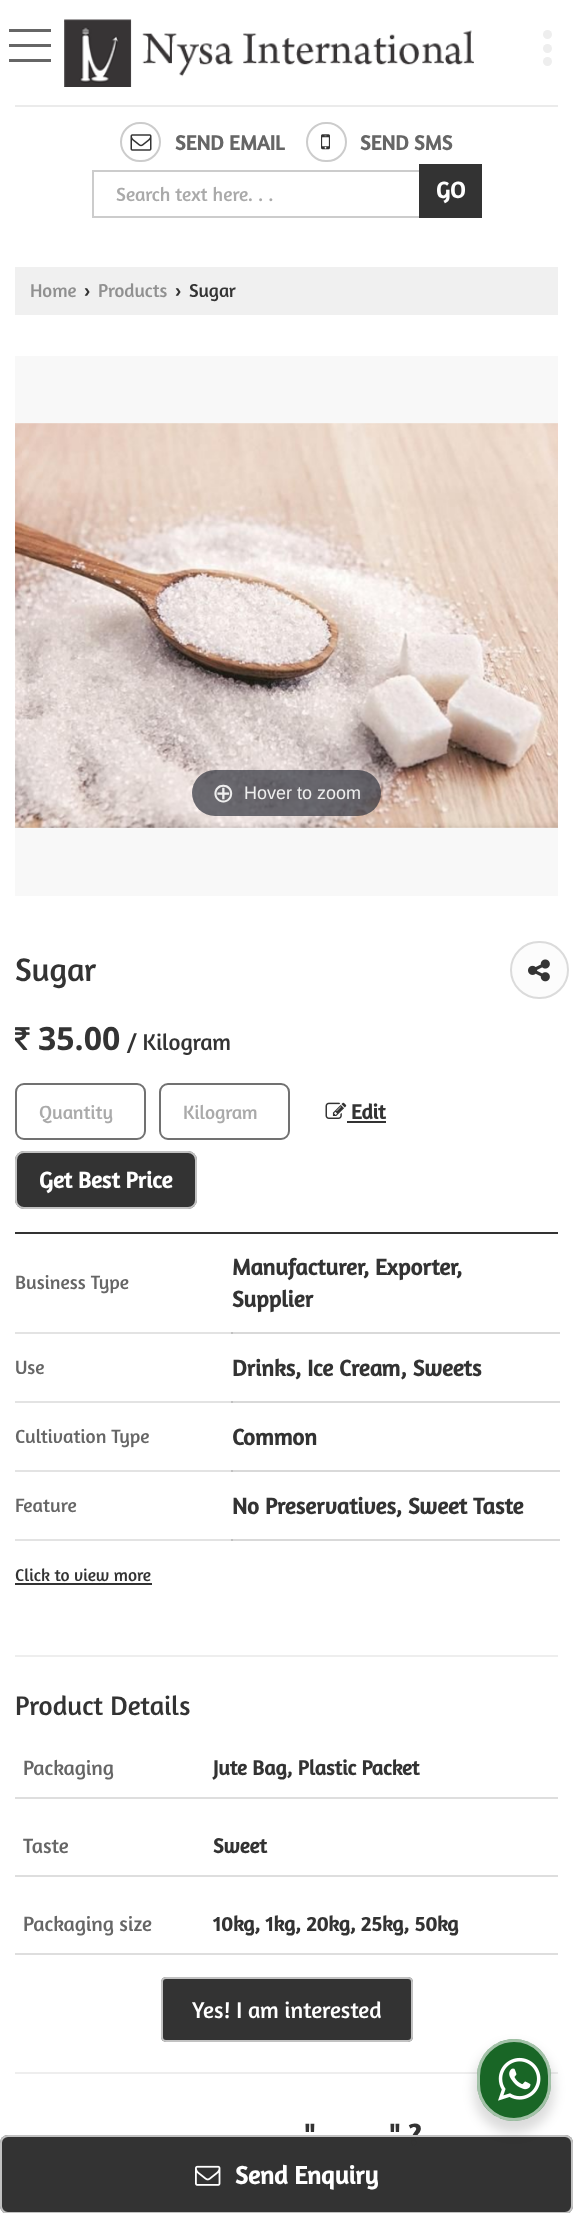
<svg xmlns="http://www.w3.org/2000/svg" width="573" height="2213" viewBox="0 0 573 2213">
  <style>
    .t1 { font: bold 21px Amaranth; fill: #666; }
    .t2 { font: 19.5px Amaranth; fill: #aaa; }
    .t3 { font: bold 23.1px Amaranth; fill: #fff; }
    .t4 { font: 19px Amaranth; fill: #909090; }
    .t5 { font: bold 19px Liberation Sans; fill: #333; }
    .t6 { font: 19px Amaranth; fill: #333; }
    .t7 { font: 27px DejaVu Sans; fill: #eee; }
    .t8 { font: 18px Liberation Sans; fill: #eee; }
    .t9 { font: 33px Amaranth; fill: #333; }
    .t10 { font: bold 32px Open Sans; fill: #333; }
    .t11 { font: 23.1px Amaranth; fill: #333; }
    .t12 { font: bold 21px Amaranth; fill: #333; }
    .t13 { font: 19.5px Amaranth; fill: #666; }
    .t14 { font: bold 23.1px Amaranth; fill: #333; }
    .t15 { font: 17.5px Amaranth; fill: #333; }
    .t16 { font: bold 30px Amaranth; fill: #333; }
    .t17 { font: bold 25.5px Amaranth; fill: #fff; }
    .t18 { font: 27.25px Amaranth; fill: #333; }
    .t19 { font: 21px Amaranth; fill: #666; }
    .t20 { font: 23.1px Amaranth; fill: #fff; }
  </style>
  <rect width="100%" height="100%" fill="#fff"/>
  <rect x="15" y="1539" width="218" height="2" fill="#e3e3e3"/>
  <rect x="15" y="1470" width="218" height="2" fill="#e3e3e3"/>
  <rect x="15" y="1401" width="218" height="2" fill="#e3e3e3"/>
  <rect x="15" y="1332" width="218" height="2" fill="#e3e3e3"/>
  <circle cx="547.5" cy="48.5" r="4.5" fill="#eee"/>
  <circle cx="547.5" cy="34.5" r="4.5" fill="#eee"/>
  <circle cx="547.5" cy="61.5" r="4.5" fill="#eee"/>
  <image x="64" y="19" width="410" height="68" href="images/1.png"/>
  <rect x="9" y="44" width="42" height="3" fill="#666"/>
  <rect x="9" y="29" width="42" height="3" fill="#666"/>
  <rect x="9" y="59" width="42" height="3" fill="#666"/>
  <rect x="15" y="105" width="543" height="2" fill="#ebebeb"/>
  <rect x="121" y="123" width="39" height="38" rx="19" fill="none" stroke="#ccc" stroke-width="2"/>
  <image x="130" y="134" width="22" height="17" href="images/2.png"/>
  <text x="175" y="150" class="t1">SEND EMAIL</text>
  <rect x="307" y="123" width="39" height="38" rx="19" fill="none" stroke="#ccc" stroke-width="2"/>
  <image x="321" y="134" width="9" height="16" href="images/3.png"/>
  <text x="360" y="150" class="t1">SEND SMS</text>
  <rect x="93" y="171" width="332" height="46" fill="none" stroke="#ccc" stroke-width="2"/>
  <text x="116" y="201" class="t2">Search text here. . .</text>
  <rect x="419" y="164" width="63" height="54" fill="#333"/>
  <text x="436" y="198" class="t3">GO</text>
  <rect x="15" y="267" width="543" height="48" fill="#f0f0f0"/>
  <text x="30" y="297" class="t4">Home</text>
  <text x="84" y="297" class="t5">›</text>
  <text x="98" y="297" class="t4">Products</text>
  <text x="175" y="297" class="t5">›</text>
  <text x="189" y="297" class="t6">Sugar</text>
  <rect x="15" y="1655" width="543" height="2" fill="#eee"/>
  <rect x="15" y="356" width="543" height="540" fill="#f8f8f8"/>
  <image x="15" y="423" width="543" height="405" href="images/4.png"/>
  <rect x="192" y="770" width="189" height="46" rx="23" fill="#31333db3"/>
  <text x="212" y="802" class="t7">⊕</text>
  <text x="244" y="799" class="t8">Hover to zoom</text>
  <text x="15" y="981" class="t9">Sugar</text>
  <rect x="511" y="942" width="57" height="56" rx="28" fill="#fcfcfc" stroke="#dbdbdb" stroke-width="2"/>
  <image x="528" y="959" width="22" height="23" href="images/5.png"/>
  <image x="15" y="1027" width="15" height="23" href="images/6.png"/>
  <text x="38" y="1050" class="t10">35.00</text>
  <text x="127" y="1050" class="t11">/ Kilogram</text>
  <rect x="16" y="1084" width="129" height="55" rx="8" fill="none" stroke="#717171" stroke-width="2"/>
  <text x="39" y="1119" class="t2">Quantity</text>
  <rect x="160" y="1084" width="129" height="55" rx="8" fill="none" stroke="#717171" stroke-width="2"/>
  <text x="183" y="1119" class="t2">Kilogram</text>
  <image x="325" y="1102" width="22" height="17" href="images/7.png"/>
  <text x="351" y="1119" class="t12">Edit</text>
  <rect x="347" y="1121" width="39" height="2" fill="#333"/>
  <rect x="15" y="1151" width="182" height="58" rx="9" fill="#333"/>
  <rect x="16" y="1152" width="180" height="56" rx="8" fill="none" stroke="#ffffffb3" stroke-width="2"/>
  <text x="39" y="1188" class="t3">Get Best Price</text>
  <rect x="15" y="1232" width="543" height="2" fill="#333"/>
  <text x="15" y="1289" class="t13">Business Type</text>
  <rect x="231" y="1332" width="329" height="2" fill="#d9d9d9"/>
  <rect x="231" y="1332" width="2" height="2" fill="#c1c1c1"/>
  <text x="232" y="1275" class="t14">Manufacturer, Exporter,</text>
  <text x="232" y="1307" class="t14">Supplier</text>
  <text x="15" y="1374" class="t13">Use</text>
  <rect x="231" y="1401" width="329" height="2" fill="#d9d9d9"/>
  <rect x="231" y="1401" width="2" height="2" fill="#c1c1c1"/>
  <text x="232" y="1376" class="t14">Drinks, Ice Cream, Sweets</text>
  <text x="15" y="1443" class="t13">Cultivation Type</text>
  <rect x="231" y="1470" width="329" height="2" fill="#d9d9d9"/>
  <rect x="231" y="1470" width="2" height="2" fill="#c1c1c1"/>
  <text x="232" y="1445" class="t14">Common</text>
  <text x="15" y="1512" class="t13">Feature</text>
  <rect x="231" y="1539" width="329" height="2" fill="#d9d9d9"/>
  <rect x="231" y="1539" width="2" height="2" fill="#c1c1c1"/>
  <text x="232" y="1514" class="t14">No Preservatives, Sweet Taste</text>
  <text x="15" y="1581" class="t15">Click to view more</text>
  <rect x="15" y="1583" width="137" height="2" fill="#333"/>
  <rect x="0" y="2135" width="573" height="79" rx="8" fill="#333"/>
  <text x="389" y="2145" class="t16">" ?</text>
  <rect x="1" y="2136" width="571" height="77" rx="7" fill="none" stroke="#ffffffb3" stroke-width="2"/>
  <image x="195" y="2165" width="26" height="21" href="images/8.png"/>
  <text x="235" y="2184" class="t17">Send Enquiry</text>
  <rect x="15" y="2072" width="543" height="2" fill="#eee"/>
  <text x="15" y="1715" class="t18">Product Details</text>
  <rect x="15" y="1797" width="543" height="2" fill="#dedede"/>
  <text x="23" y="1775" class="t19">Packaging</text>
  <text x="213" y="1775" class="t12">Jute Bag, Plastic Packet</text>
  <rect x="15" y="1875" width="543" height="2" fill="#dedede"/>
  <text x="23" y="1853" class="t19">Taste</text>
  <text x="213" y="1853" class="t12">Sweet</text>
  <rect x="15" y="1953" width="543" height="2" fill="#dedede"/>
  <text x="23" y="1931" class="t19">Packaging size</text>
  <text x="213" y="1931" class="t12">10kg, 1kg, 20kg, 25kg, 50kg</text>
  <rect x="161" y="1977" width="252" height="65" rx="5" fill="#333"/>
  <rect x="162" y="1978" width="250" height="63" rx="4" fill="none" stroke="#ffffffb3" stroke-width="2"/>
  <text x="192" y="2018" class="t20">Yes! I am interested</text>
  <text x="304" y="2145" class="t16">"</text>
  <rect x="474" y="2045" width="80" height="88" rx="40" fill="#00000024" filter="blur(6px)"/>
  <rect x="477" y="2039" width="74" height="82" rx="37" fill="#196626"/>
  <rect x="478.5" y="2040.5" width="71" height="79" rx="35.5" fill="none" stroke="#ffffff99" stroke-width="3"/>
  <image x="498" y="2057" width="43" height="44" href="images/9.png"/>
</svg>
